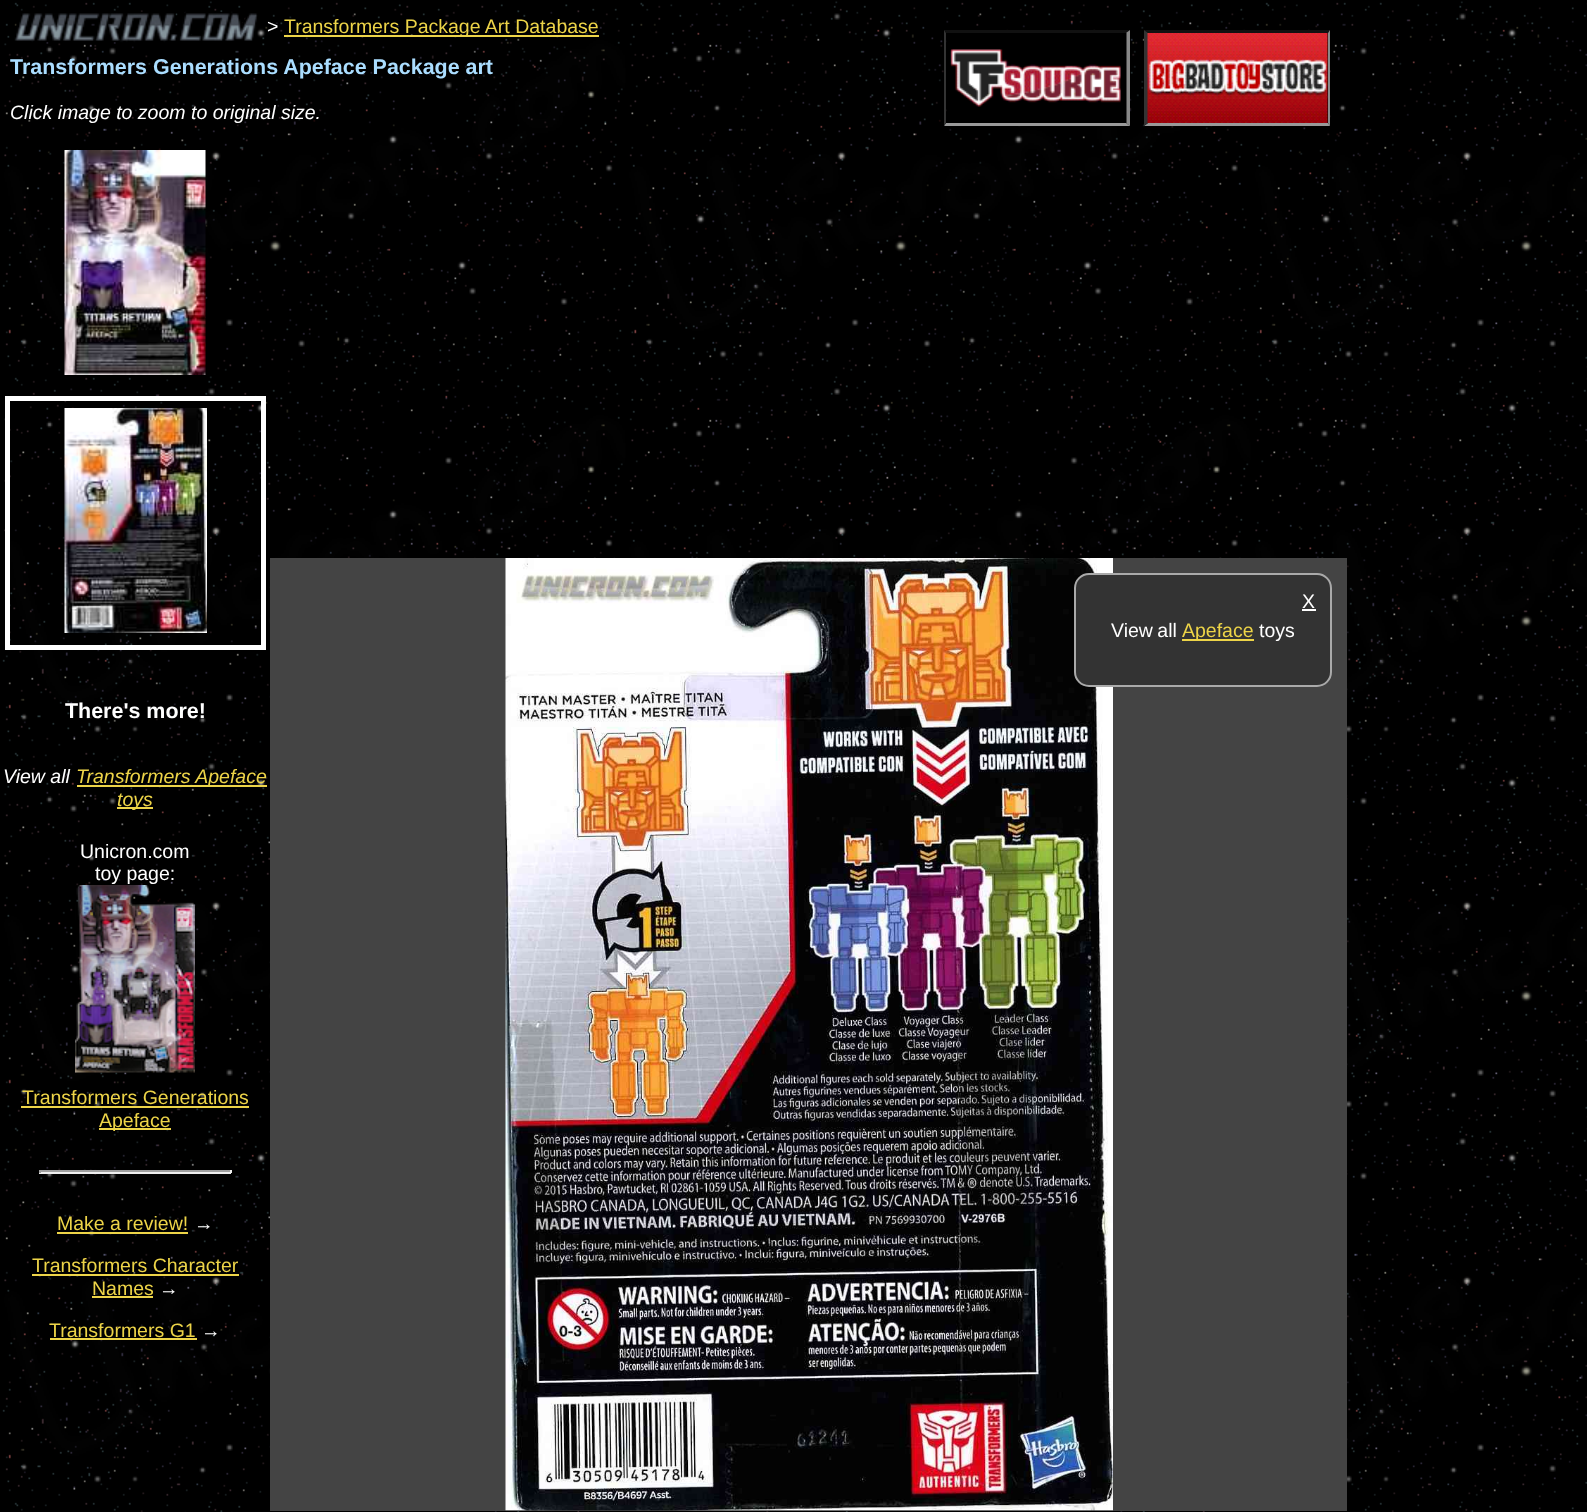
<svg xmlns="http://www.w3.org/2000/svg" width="1587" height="1512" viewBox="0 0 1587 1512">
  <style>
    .t1 { font: 19.5px Liberation Sans; fill: #fff; }
    .t2 { font: 19.5px Liberation Sans; fill: #edd448; }
    .t3 { font: bold 21.45px Liberation Sans; fill: #adf; }
    .t4 { font: italic 19.5px Liberation Sans; fill: #fff; }
    .t5 { font: bold 21.45px Liberation Sans; fill: #fff; }
    .t6 { font: italic 19.5px Liberation Sans; fill: #edd448; }
  </style>
  <rect width="100%" height="100%" fill="#000"/>
  <image x="2" y="1" width="1585" height="1511" href="images/1.png"/>
  <image x="14" y="11" width="244" height="32" href="images/2.png"/>
  <text x="267" y="33" class="t1">&gt;</text>
  <rect x="284" y="35" width="315" height="2" fill="#edd448"/>
  <text x="284" y="33" class="t2">Transformers Package Art Database</text>
  <text x="10" y="74" class="t3">Transformers Generations Apeface Package art</text>
  <path d="M944 30H1130L1126 33H946Z" fill="#111"/>
  <path d="M1130 30V126L1126 123V33Z" fill="#888"/>
  <path d="M1130 126H944L946 123H1126Z" fill="#999"/>
  <path d="M944 126V30L946 33V123Z" fill="#333"/>
  <path d="M1144 30H1330L1328 33H1148Z" fill="#111"/>
  <image x="946" y="33" width="181" height="90" href="images/3.png"/>
  <path d="M1330 30V126L1328 123V33Z" fill="#888"/>
  <path d="M1330 126H1144L1148 123H1328Z" fill="#999"/>
  <path d="M1144 126V30L1148 33V123Z" fill="#333"/>
  <image x="1147" y="33" width="181" height="90" href="images/4.png"/>
  <text x="10" y="119" class="t4">Click image to zoom to original size.</text>
  <rect x="270" y="558" width="1077" height="953" fill="#444"/>
  <image x="505" y="558" width="608" height="953" href="images/5.png"/>
  <rect x="1075" y="574" width="256" height="112" rx="14" fill="#333" stroke="#aaa" stroke-width="2"/>
  <text x="1302" y="608" class="t1">X</text>
  <rect x="1302" y="609" width="14" height="2" fill="#fff"/>
  <text x="1111" y="637" word-spacing="-1" class="t1">View all</text>
  <rect x="1182" y="639" width="72" height="2" fill="#edd448"/>
  <text x="1182" y="637" class="t2">Apeface</text>
  <text x="1259" y="637" class="t1">toys</text>
  <image x="64" y="150" width="142" height="225" href="images/6.png"/>
  <rect x="7.5" y="398.5" width="256" height="249" fill="none" stroke="#fff" stroke-width="5"/>
  <image x="64" y="408" width="143" height="225" href="images/7.png"/>
  <text x="65" y="718" class="t5">There's more!</text>
  <text x="3" y="783" class="t4">View all</text>
  <rect x="77" y="785" width="190" height="2" fill="#edd448"/>
  <text x="76" y="783" class="t6">Transformers Apeface</text>
  <rect x="117" y="807" width="36" height="2" fill="#edd448"/>
  <text x="117" y="806" class="t6">toys</text>
  <text x="80" y="858" class="t1">Unicron.com</text>
  <text x="95" y="880" class="t1">toy page:</text>
  <image x="75" y="885" width="120" height="188" href="images/8.png"/>
  <text x="22" y="1104" class="t2">Transformers Generations</text>
  <rect x="21" y="1106" width="228" height="2" fill="#edd448"/>
  <rect x="99" y="1128" width="72" height="2" fill="#edd448"/>
  <text x="99" y="1127" class="t2">Apeface</text>
  <rect x="39" y="1170" width="192" height="2" fill="#9f9f9f"/>
  <rect x="230" y="1170" width="2" height="3" fill="#eee"/>
  <rect x="39" y="1172" width="192" height="2" fill="#eee"/>
  <rect x="39" y="1170" width="2" height="3" fill="#9f9f9f"/>
  <text x="57" y="1230" class="t2">Make a review!</text>
  <rect x="57" y="1232" width="131" height="2" fill="#edd448"/>
  <text x="194" y="1230" class="t1">→</text>
  <text x="32" y="1272" class="t2">Transformers Character</text>
  <rect x="32" y="1274" width="207" height="2" fill="#edd448"/>
  <text x="92" y="1295" class="t2">Names</text>
  <rect x="92" y="1296" width="61" height="2" fill="#edd448"/>
  <text x="159" y="1295" class="t1">→</text>
  <text x="49" y="1337" class="t2">Transformers G1</text>
  <rect x="50" y="1338" width="147" height="2" fill="#edd448"/>
  <text x="201" y="1337" class="t1">→</text>
</svg>
